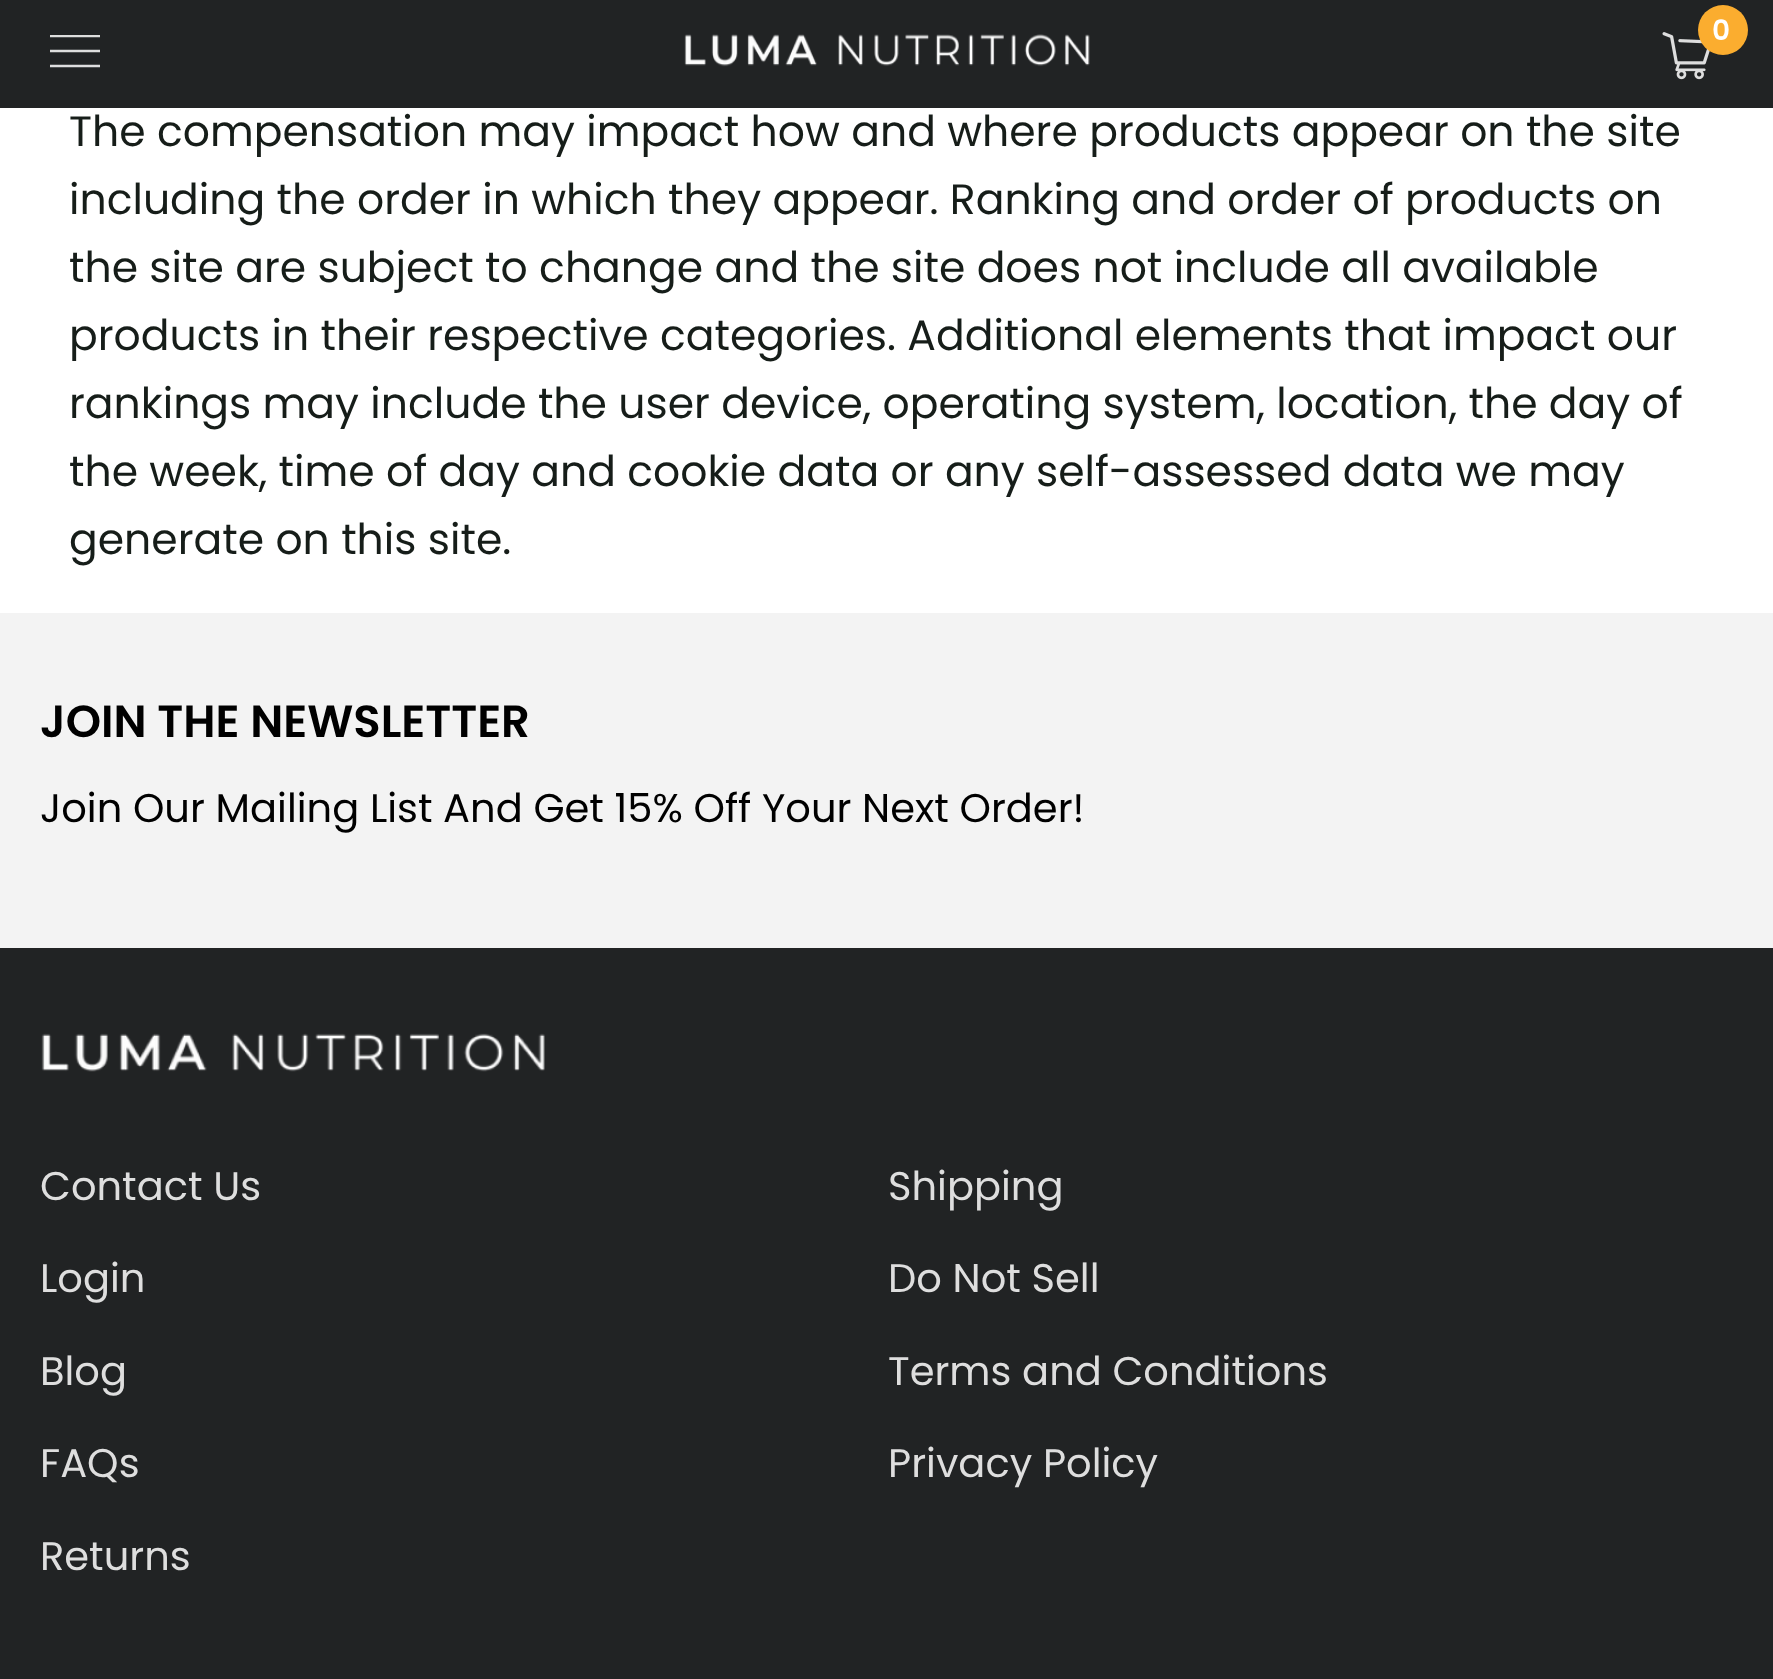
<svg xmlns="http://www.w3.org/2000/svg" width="1773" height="1679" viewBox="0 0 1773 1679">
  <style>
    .t1 { font: 600 28px Poppins; letter-spacing: 2px; fill: #fff; }
    .t2 { font: 42.5px Poppins; fill: #161d19; }
    .t3 { font: 600 45px Poppins; fill: #000; }
    .t4 { font: 40px Poppins; fill: #000; }
    .t5 { font: 40px Poppins; fill: #dedede; }
  </style>
  <defs>
    <clipPath id="clip1"><rect x="50" y="35" width="50" height="33"/></clipPath>
  </defs>
  <rect width="100%" height="100%" fill="#fff"/>
  <rect x="0" y="0" width="1773" height="108" fill="#212324"/>
  <image x="1662" y="32" width="48" height="48" href="images/1.png"/>
  <circle cx="1723" cy="30" r="25" fill="#fbad2f"/>
  <text x="1712" y="40" class="t1">0</text>
  <g clip-path="url(#clip1)">
    <path d="M50 36H100M50 51H100M50 66H100" fill="none" stroke="#dedede" stroke-width="2.5"/>
  </g>
  <image x="684" y="34" width="406" height="33" href="images/2.png"/>
  <text x="69" y="146" class="t2">The compensation may impact how and where products appear on the site</text>
  <text x="69" y="214" class="t2">including the order in which they appear. Ranking and order of products on</text>
  <text x="69" y="282" class="t2">the site are subject to change and the site does not include all available</text>
  <text x="69" y="350" class="t2">products in their respective categories. Additional elements that impact our</text>
  <text x="69" y="418" class="t2">rankings may include the user device, operating system, location, the day of</text>
  <text x="69" y="486" class="t2">the week, time of day and cookie data or any self-assessed data we may</text>
  <text x="69" y="554" class="t2">generate on this site.</text>
  <rect x="0" y="613" width="1773" height="335" fill="#f3f3f3"/>
  <text x="40" y="737" class="t3">JOIN THE NEWSLETTER</text>
  <text x="40" y="822" class="t4">Join Our Mailing List And Get 15% Off Your Next Order!</text>
  <rect x="0" y="948" width="1773" height="731" fill="#212324"/>
  <image x="41" y="1033" width="504" height="39" href="images/3.png"/>
  <text x="40" y="1200" class="t5">Contact Us</text>
  <text x="888" y="1200" class="t5">Shipping</text>
  <text x="40" y="1292" class="t5">Login</text>
  <text x="888" y="1292" class="t5">Do Not Sell</text>
  <text x="40" y="1385" class="t5">Blog</text>
  <text x="888" y="1385" class="t5">Terms and Conditions</text>
  <text x="40" y="1477" class="t5">FAQs</text>
  <text x="888" y="1477" class="t5">Privacy Policy</text>
  <text x="40" y="1570" class="t5">Returns</text>
</svg>
